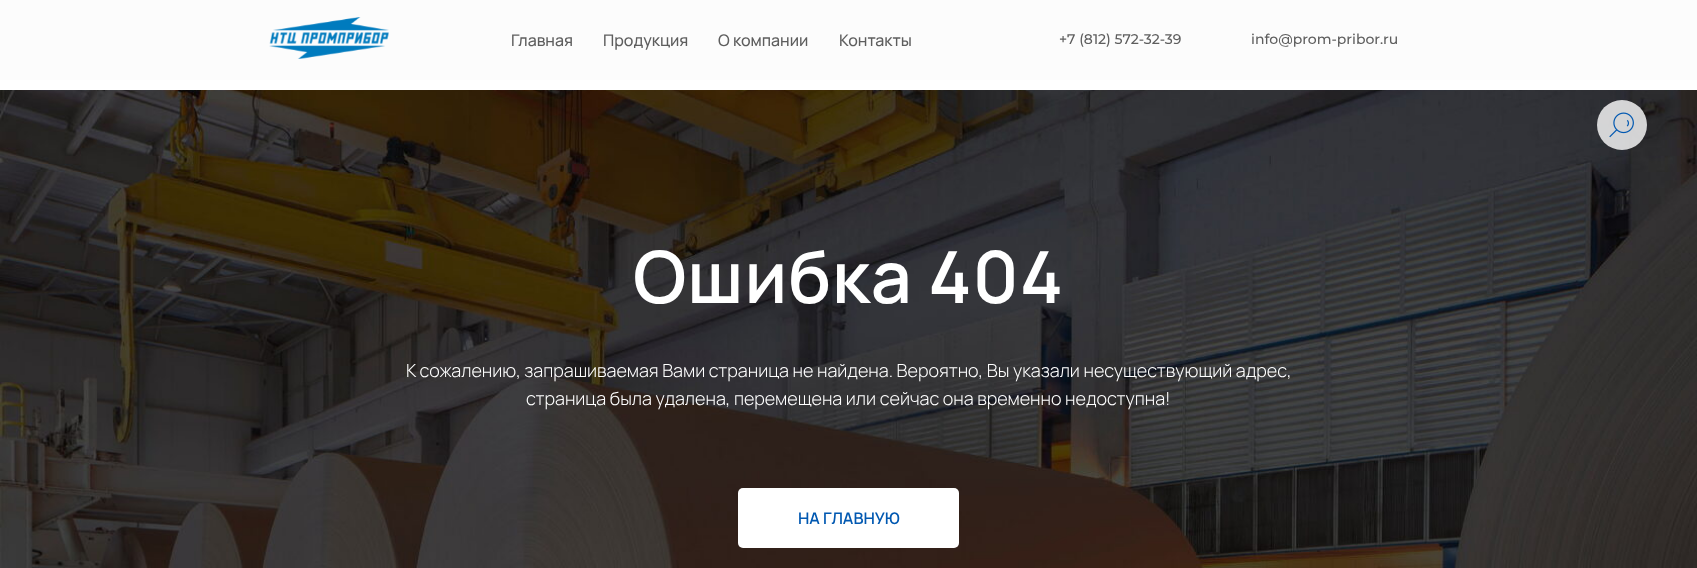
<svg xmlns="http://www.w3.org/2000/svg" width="1697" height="568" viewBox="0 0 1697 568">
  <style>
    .t1 { font: 500 16px Manrope; fill: #5e5e5e; }
    .t2 { font: 500 14px Montserrat; fill: #5e5e5e; }
    .t3 { font: 600 72px Manrope; letter-spacing: 1px; fill: #fff; }
    .t4 { font: 300 18px Manrope; fill: #fff; }
    .t5 { font: 600 16px Manrope; fill: #0158b1; }
  </style>
  <rect width="100%" height="100%" fill="#fff"/>
  <rect x="0" y="0" width="1697" height="80" fill="#fcfcfc"/>
  <image x="269" y="17" width="120" height="42" href="images/1.png"/>
  <text x="511" y="46" class="t1">Главная</text>
  <text x="603" y="46" class="t1">Продукция</text>
  <text x="718" y="46" class="t1">О компании</text>
  <text x="839" y="46" class="t1">Контакты</text>
  <text x="1059" y="44" class="t2">+7 (812) 572-32-39</text>
  <text x="1251" y="44" class="t2">info@prom-pribor.ru</text>
  <image x="0" y="90" width="1697" height="478" href="images/3.png"/>
  <circle cx="1622" cy="125" r="25" fill="#ffffffcc"/>
  <image x="1609" y="112" width="25" height="26" href="images/2.png"/>
  <text x="633" y="303" class="t3">Ошибка 404</text>
  <text x="406" y="377" class="t4">К сожалению, запрашиваемая Вами страница не найдена. Вероятно, Вы указали несуществующий адрес,</text>
  <text x="526" y="405" class="t4">страница была удалена, перемещена или сейчас она временно недоступна!</text>
  <rect x="738" y="488" width="221" height="60" rx="5" fill="#fff"/>
  <text x="798" y="524" class="t5">НА ГЛАВНУЮ</text>
</svg>
